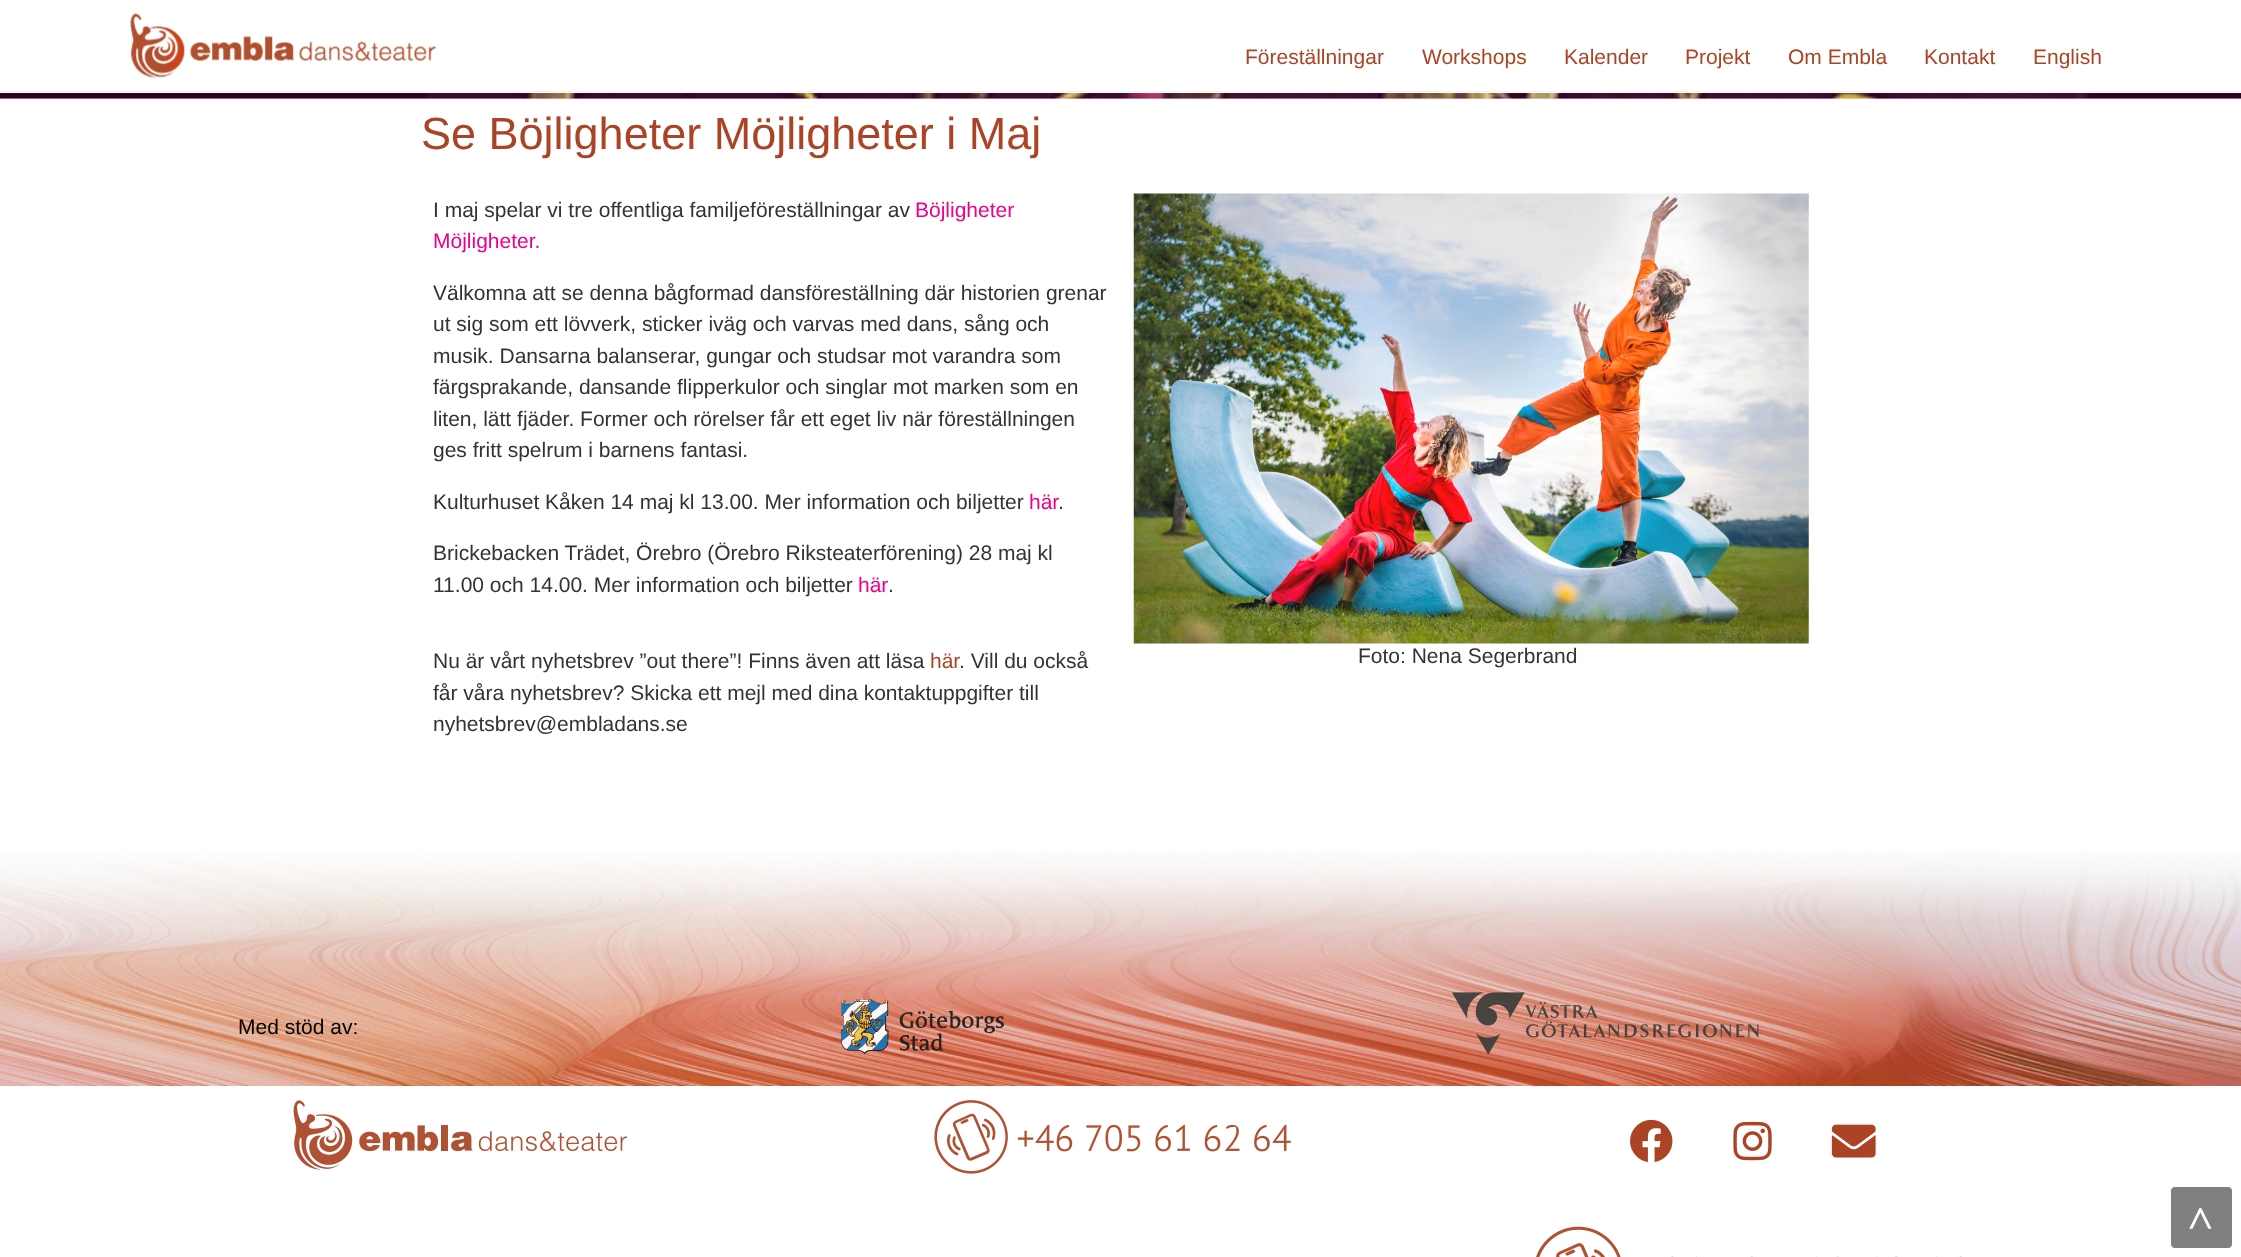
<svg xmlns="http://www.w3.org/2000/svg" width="2241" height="1257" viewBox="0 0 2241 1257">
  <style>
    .t1 { font: 21px Liberation Sans; fill: #aa4425; }
    .t2 { font: 45px Liberation Sans; fill: #aa4425; }
    .t3 { font: 21px Liberation Sans; fill: #333; }
    .t4 { font: 21px Liberation Sans; fill: #ec008c; }
    .t5 { font: 21px Liberation Sans; fill: #000; }
    .t6 { font: bold 44px Liberation Serif; fill: #fff; }
  </style>
  <defs>
    <linearGradient id="g1" gradientUnits="userSpaceOnUse" x1="1121" y1="-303" x2="1121" y2="99"><stop offset="0" stop-color="#000" stop-opacity="0.81"/><stop offset="1" stop-color="#ec008c" stop-opacity="0.21"/></linearGradient>
  </defs>
  <rect width="100%" height="100%" fill="#fff"/>
  <rect x="0" y="91" width="2241" height="1" fill="#f1f1f1"/>
  <image x="130" y="13" width="307" height="65" href="images/1.png"/>
  <text x="1245" y="64" class="t1">Föreställningar</text>
  <text x="1422" y="64" class="t1">Workshops</text>
  <text x="1564" y="64" class="t1">Kalender</text>
  <text x="1685" y="64" class="t1">Projekt</text>
  <text x="1788" y="64" class="t1">Om Embla</text>
  <text x="1924" y="64" class="t1">Kontakt</text>
  <text x="2033" y="64" class="t1">English</text>
  <image x="0" y="93" width="2241" height="6" href="images/2.png"/>
  <rect x="0" y="93" width="2241" height="6" fill="url(#g1)"/>
  <text x="421" y="149" class="t2">Se Böjligheter Möjligheter i Maj</text>
  <text x="433" y="217" class="t3">I maj spelar vi tre offentliga familjeföreställningar av</text>
  <text x="915" y="217" class="t4">Böjligheter</text>
  <text x="433" y="248" class="t4">Möjligheter.</text>
  <text x="433" y="300" class="t3">Välkomna att se denna bågformad dansföreställning där historien grenar</text>
  <text x="433" y="331" class="t3">ut sig som ett lövverk, sticker iväg och varvas med dans, sång och</text>
  <text x="433" y="363" class="t3">musik. Dansarna balanserar, gungar och studsar mot varandra som</text>
  <text x="433" y="394" class="t3">färgsprakande, dansande flipperkulor och singlar mot marken som en</text>
  <text x="433" y="426" class="t3">liten, lätt fjäder. Former och rörelser får ett eget liv när föreställningen</text>
  <text x="433" y="457" class="t3">ges fritt spelrum i barnens fantasi.</text>
  <text x="433" y="509" class="t3">Kulturhuset Kåken 14 maj kl 13.00. Mer information och biljetter</text>
  <text x="1029" y="509" class="t4">här</text>
  <text x="1058" y="509" class="t3">.</text>
  <text x="433" y="560" class="t3">Brickebacken Trädet, Örebro (Örebro Riksteaterförening) 28 maj kl</text>
  <text x="433" y="592" class="t3">11.00 och 14.00. Mer information och biljetter</text>
  <text x="858" y="592" class="t4">här</text>
  <text x="888" y="592" class="t3">.</text>
  <text x="433" y="668" class="t3">Nu är vårt nyhetsbrev ”out there”! Finns även att läsa</text>
  <text x="930" y="668" class="t1">här</text>
  <text x="959" y="668" class="t3">. Vill du också</text>
  <text x="433" y="700" class="t3">får våra nyhetsbrev? Skicka ett mejl med dina kontaktuppgifter till</text>
  <text x="433" y="731" class="t3">nyhetsbrev@embladans.se</text>
  <image x="1133" y="193" width="676" height="451" href="images/3.png"/>
  <text x="1358" y="663" class="t3">Foto: Nena Segerbrand</text>
  <image x="0" y="850" width="2241" height="236" href="images/4.png"/>
  <text x="238" y="1034" class="t5">Med stöd av:</text>
  <image x="841" y="999" width="163" height="55" href="images/5.png"/>
  <image x="1452" y="992" width="307" height="63" href="images/6.png"/>
  <image x="293" y="1100" width="334" height="70" href="images/7.png"/>
  <image x="934" y="1100" width="357" height="74" href="images/8.png"/>
  <image x="1630" y="1119" width="43" height="43" href="images/9.png"/>
  <image x="1733" y="1121" width="39" height="40" href="images/10.png"/>
  <image x="1831" y="1124" width="45" height="34" href="images/11.png"/>
  <image x="1536" y="1226" width="426" height="31" href="images/12.png"/>
  <rect x="2170.5" y="1186.5" width="62" height="62" rx="4.5" fill="#808080" stroke="#fff"/>
  <text x="2188" y="1233" class="t6">˄</text>
</svg>
